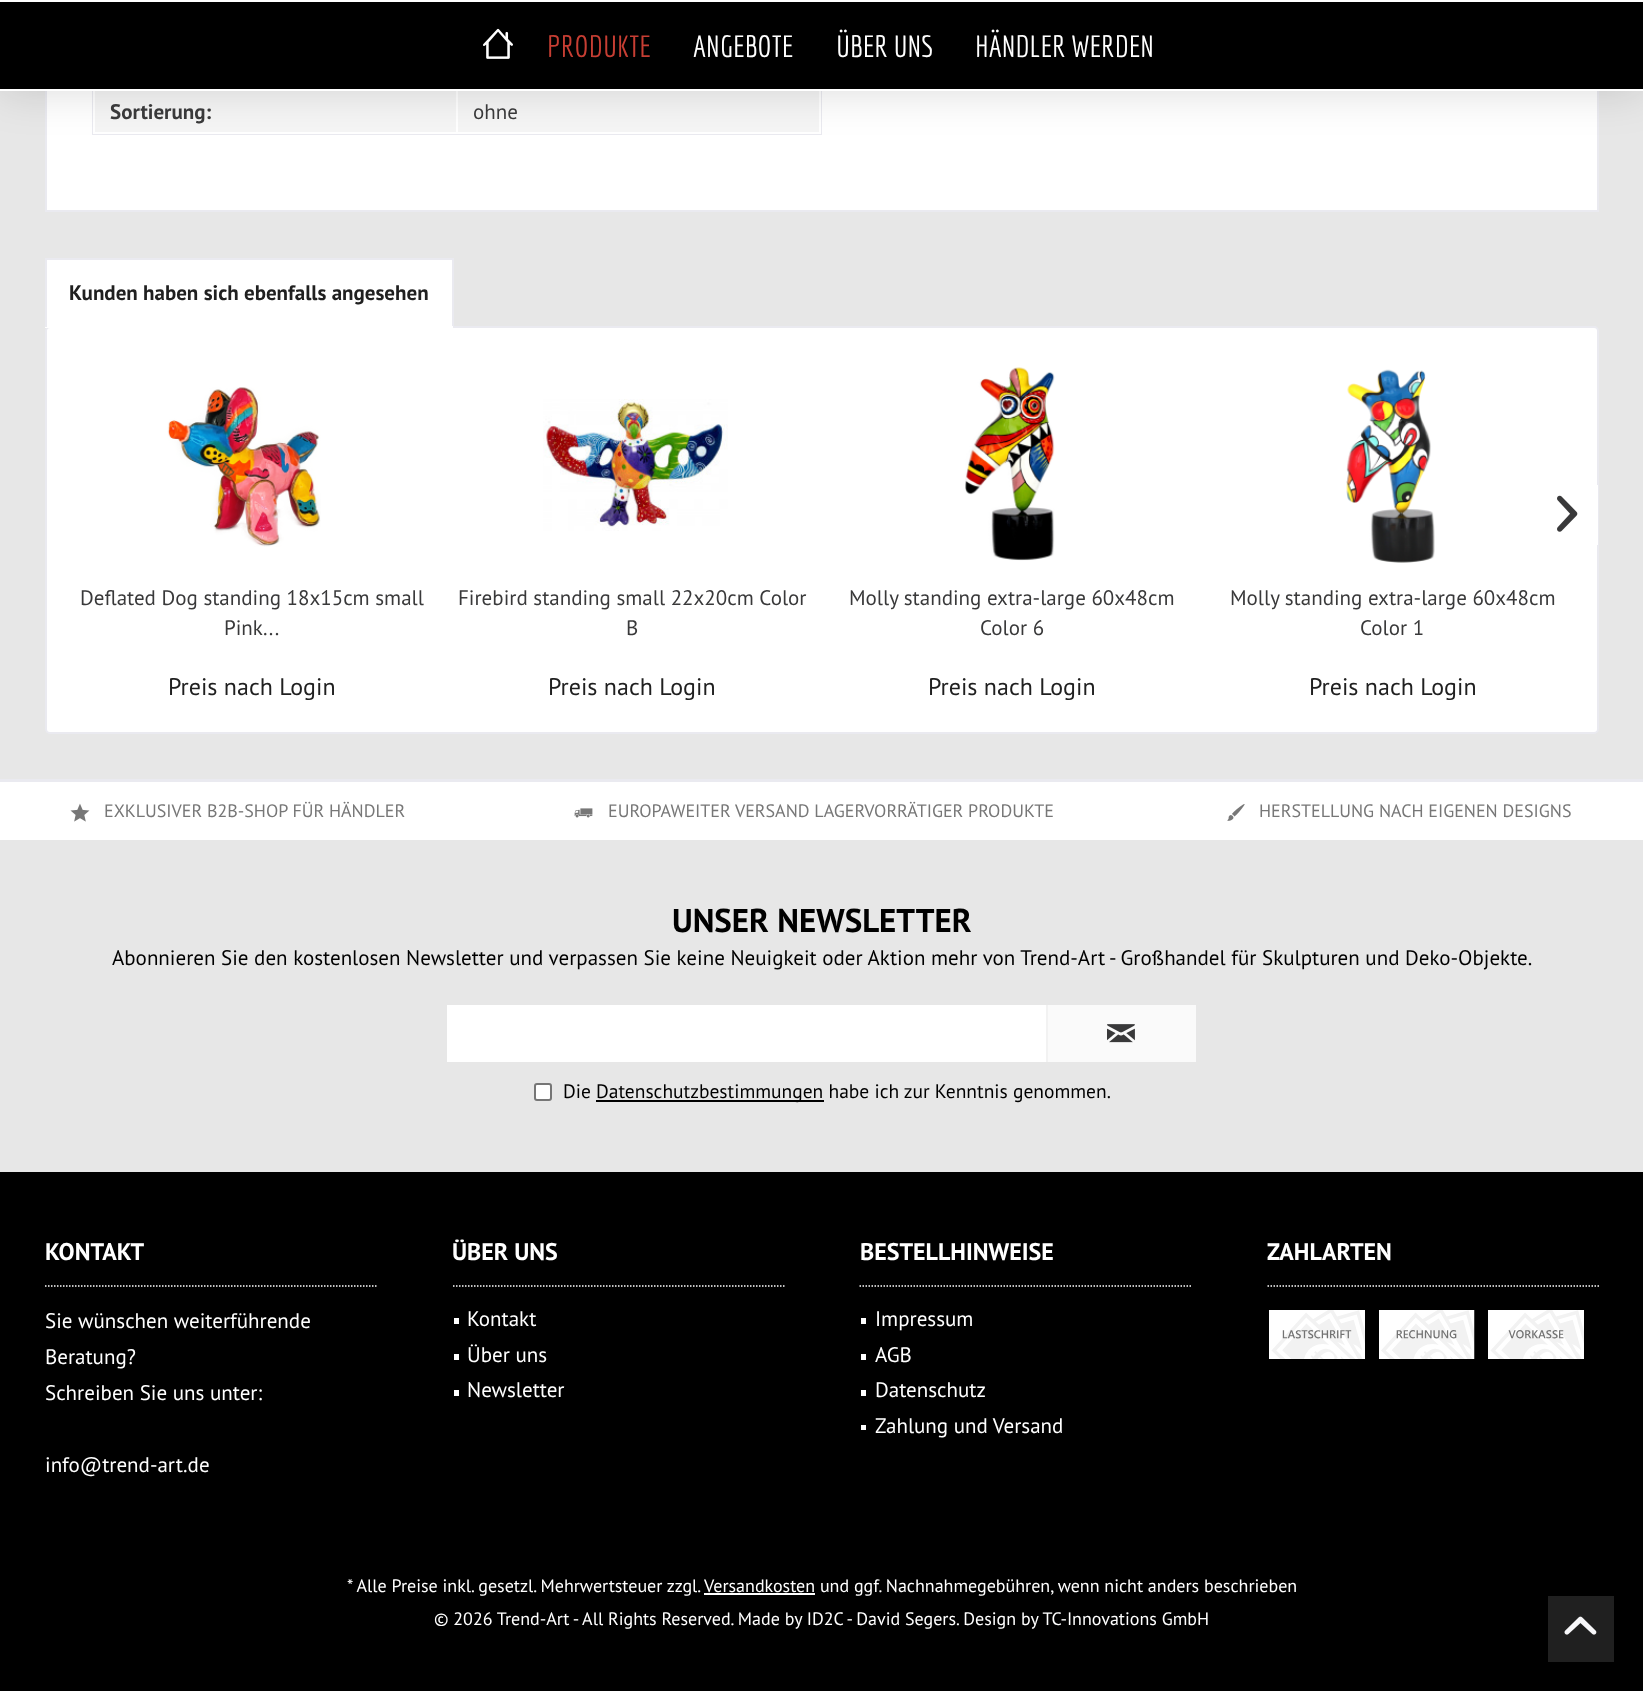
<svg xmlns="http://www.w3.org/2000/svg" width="1643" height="1691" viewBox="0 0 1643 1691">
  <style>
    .t1 { font: 30px Economica; fill: #c73e33; }
    .t2 { font: 30px Economica; fill: #fff; }
    .t3 { font: bold 21px PT Sans; fill: #39393a; }
    .t4 { font: 21px PT Sans; fill: #39393a; }
    .t5 { font: bold 21px PT Sans; fill: #202020; }
    .t6 { font: 24px PT Sans; fill: #202020; }
    .t7 { font: 18px PT Sans; fill: #777; }
    .t8 { font: bold 33px PT Sans; fill: #000; }
    .t9 { font: 21px PT Sans; fill: #000; }
    .t10 { font: 19.5px PT Sans; fill: #000; }
    .t11 { font: bold 24px PT Sans; fill: #fff; }
    .t12 { font: 21px PT Sans; fill: #fff; }
    .t13 { font: 18px PT Sans; fill: #fff; }
  </style>
  <rect width="100%" height="100%" fill="#e7e7e7"/>
  <rect x="47" y="91" width="1550" height="119" fill="#fff"/>
  <rect x="46" y="-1" width="1552" height="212" fill="none" stroke="#eaeaf0" stroke-width="2"/>
  <rect x="93" y="-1" width="728" height="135" fill="none" stroke="#eaeaf0" stroke-width="2"/>
  <rect x="93" y="91" width="728" height="43" fill="#fff"/>
  <rect x="95" y="91" width="361" height="41" fill="#f5f5f5"/>
  <rect x="458" y="91" width="361" height="41" fill="#f5f5f5"/>
  <rect x="0" y="0" width="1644" height="90" fill="#00000026" filter="blur(22.5px)"/>
  <rect x="0" y="2" width="1643" height="87" fill="#000"/>
  <rect x="0" y="0" width="1643" height="2" fill="#fff"/>
  <rect x="0" y="89" width="1643" height="2" fill="#fff"/>
  <image x="483" y="28" width="30" height="31" href="images/1.png"/>
  <text x="547" y="57" class="t1">PRODUKTE</text>
  <text x="693" y="57" class="t2">ANGEBOTE</text>
  <text x="836" y="57" class="t2">ÜBER UNS</text>
  <text x="975" y="57" class="t2">HÄNDLER WERDEN</text>
  <text x="110" y="119" class="t3">Sortierung:</text>
  <text x="473" y="119" class="t4">ohne</text>
  <rect x="47" y="260" width="405" height="66" fill="#fff"/>
  <rect x="45" y="258" width="408" height="2" fill="#eaeaf0"/>
  <rect x="46" y="327" width="1552" height="406" rx="4" fill="#fff" stroke="#eaeaf0" stroke-width="2"/>
  <rect x="452" y="258" width="2" height="69" fill="#eaeaf0"/>
  <rect x="45" y="326" width="408" height="2" fill="#fff"/>
  <rect x="45" y="258" width="2" height="69" fill="#eaeaf0"/>
  <text x="69" y="300" class="t5">Kunden haben sich ebenfalls angesehen</text>
  <rect x="1597" y="485" width="1" height="60" fill="#fff"/>
  <image x="1557" y="495" width="21" height="37" href="images/2.png"/>
  <image x="167" y="387" width="154" height="160" href="images/3.png"/>
  <text x="80" y="605" class="t4">Deflated Dog standing 18x15cm small</text>
  <text x="224" y="635" class="t4">Pink...</text>
  <text x="168" y="695" class="t6">Preis nach Login</text>
  <image x="543" y="399" width="185" height="132" href="images/4.png"/>
  <text x="458" y="605" class="t4">Firebird standing small 22x20cm Color</text>
  <text x="626" y="635" class="t4">B</text>
  <text x="548" y="695" class="t6">Preis nach Login</text>
  <image x="965" y="367" width="90" height="194" href="images/5.png"/>
  <text x="849" y="605" class="t4">Molly standing extra-large 60x48cm</text>
  <text x="980" y="635" class="t4">Color 6</text>
  <text x="928" y="695" class="t6">Preis nach Login</text>
  <image x="1346" y="369" width="89" height="194" href="images/6.png"/>
  <text x="1230" y="605" class="t4">Molly standing extra-large 60x48cm</text>
  <text x="1360" y="635" class="t4">Color 1</text>
  <text x="1309" y="695" class="t6">Preis nach Login</text>
  <rect x="0" y="1172" width="1643" height="519" fill="#000"/>
  <rect x="0" y="779" width="1643" height="3" fill="#eaeaf0"/>
  <rect x="0" y="782" width="1643" height="58" fill="#fff"/>
  <image x="70" y="803" width="20" height="19" href="images/7.png"/>
  <text x="104" y="817" class="t7">EXKLUSIVER B2B-SHOP FÜR HÄNDLER</text>
  <image x="574" y="808" width="19" height="10" href="images/8.png"/>
  <text x="608" y="817" class="t7">EUROPAWEITER VERSAND LAGERVORRÄTIGER PRODUKTE</text>
  <image x="1227" y="804" width="18" height="17" href="images/9.png"/>
  <text x="1259" y="817" class="t7">HERSTELLUNG NACH EIGENEN DESIGNS</text>
  <text x="672" y="932" class="t8">UNSER NEWSLETTER</text>
  <text x="112" y="965" class="t9">Abonnieren Sie den kostenlosen Newsletter und verpassen Sie keine Neuigkeit oder Aktion mehr von Trend-Art - Großhandel für Skulpturen und Deko-Objekte.</text>
  <rect x="447" y="1005" width="599" height="57" fill="#fff"/>
  <rect x="1048" y="1005" width="148" height="57" fill="#fafafa"/>
  <rect x="1046" y="1005" width="2" height="57" fill="#f2f2f2"/>
  <image x="1107" y="1024" width="28" height="19" href="images/10.png"/>
  <rect x="535" y="1084" width="16" height="16" rx="2" fill="#fff" stroke="#767676" stroke-width="2"/>
  <text x="563" y="1098" class="t10">Die</text>
  <rect x="596" y="1100" width="228" height="2" fill="#000"/>
  <text x="596" y="1098" class="t10">Datenschutzbestimmungen habe ich zur Kenntnis genommen.</text>
  <path d="M45 1286H378" fill="none" stroke="#fff" stroke-width="1.5" stroke-dasharray="1.5 1.5"/>
  <text x="45" y="1260" class="t11">KONTAKT</text>
  <text x="45" y="1328" class="t12">Sie wünschen weiterführende</text>
  <text x="45" y="1364" class="t12">Beratung?</text>
  <text x="45" y="1400" class="t12">Schreiben Sie uns unter:</text>
  <text x="45" y="1472" class="t12">info@trend-art.de</text>
  <path d="M453 1286H784.5" fill="none" stroke="#fff" stroke-width="1.5" stroke-dasharray="1.5 1.5"/>
  <text x="452" y="1260" class="t11">ÜBER UNS</text>
  <rect x="454" y="1318" width="5" height="6" fill="#fff"/>
  <text x="467" y="1326" class="t12">Kontakt</text>
  <rect x="454" y="1354" width="5" height="6" fill="#fff"/>
  <text x="467" y="1362" class="t12">Über uns</text>
  <rect x="454" y="1390" width="5" height="6" fill="#fff"/>
  <text x="467" y="1397" class="t12">Newsletter</text>
  <path d="M859.5 1286H1192.5" fill="none" stroke="#fff" stroke-width="1.5" stroke-dasharray="1.5 1.5"/>
  <text x="860" y="1260" class="t11">BESTELLHINWEISE</text>
  <rect x="861" y="1318" width="5" height="6" fill="#fff"/>
  <text x="875" y="1326" class="t12">Impressum</text>
  <rect x="861" y="1354" width="5" height="6" fill="#fff"/>
  <text x="875" y="1362" class="t12">AGB</text>
  <rect x="861" y="1390" width="5" height="6" fill="#fff"/>
  <text x="875" y="1397" class="t12">Datenschutz</text>
  <rect x="861" y="1425" width="5" height="5" fill="#fff"/>
  <text x="875" y="1433" class="t12">Zahlung und Versand</text>
  <path d="M1267.5 1286H1599" fill="none" stroke="#fff" stroke-width="1.5" stroke-dasharray="1.5 1.5"/>
  <text x="1267" y="1260" class="t11">ZAHLARTEN</text>
  <image x="1269" y="1310" width="96" height="49" href="images/11.png"/>
  <image x="1379" y="1310" width="96" height="49" href="images/12.png"/>
  <image x="1488" y="1310" width="96" height="49" href="images/13.png"/>
  <text x="347" y="1592" class="t13">* Alle Preise inkl. gesetzl. Mehrwertsteuer zzgl. Versandkosten und ggf. Nachnahmegebühren, wenn nicht anders beschrieben</text>
  <rect x="704" y="1593" width="111" height="2" fill="#fff"/>
  <text x="434" y="1625" class="t13">© 2026 Trend-Art - All Rights Reserved. Made by ID2C - David Segers. Design by TC-Innovations GmbH</text>
  <rect x="1548" y="1596" width="66" height="66" fill="#202020"/>
  <image x="1564" y="1616" width="33" height="19" href="images/14.png"/>
</svg>
